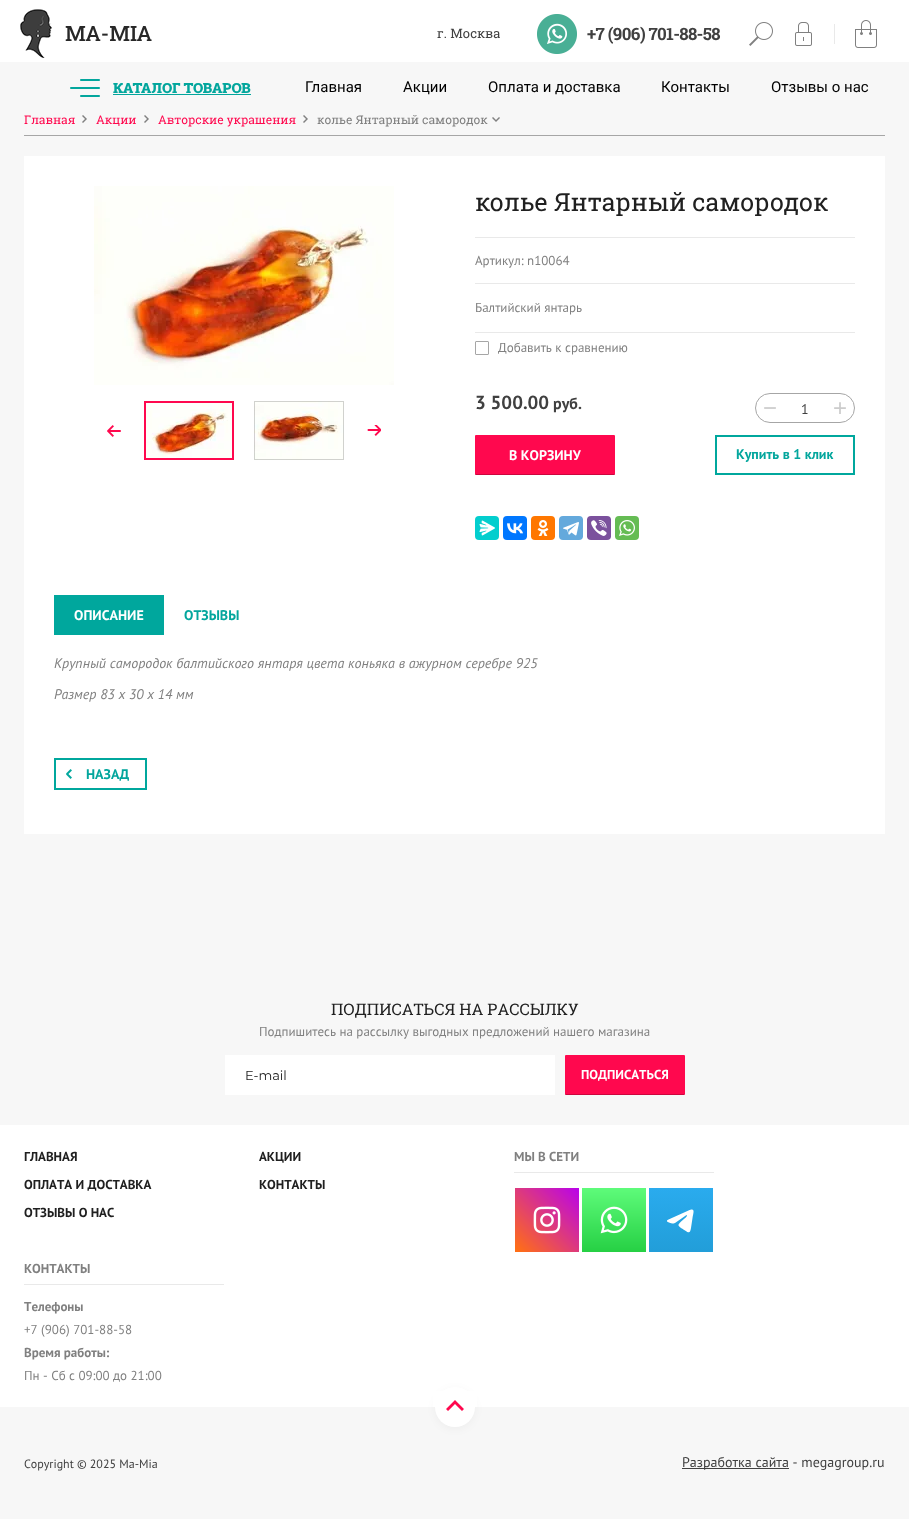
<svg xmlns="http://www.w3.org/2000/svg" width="909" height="1519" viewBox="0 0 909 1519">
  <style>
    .t1 { font: 500 21px Roboto Slab; fill: #282828; }
    .t2 { font: 13px 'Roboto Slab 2'; fill: #404040; }
    .t3 { font: bold 17px Roboto Slab; letter-spacing: -0.6px; fill: #404040; }
    .t4 { font: 900 14px Roboto Slab; fill: #03a69d; }
    .t5 { font: 15px Roboto; fill: #000; }
    .t6 { font: 12px Roboto Slab; fill: #ff084e; }
    .t7 { font: 12px Roboto Slab; fill: #808080; }
    .t8 { font: 25px 'Roboto Slab 2'; fill: #202020; }
    .t9 { font: 13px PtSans; fill: #808080; }
    .t10 { font: bold 19px PtSans; fill: #404040; }
    .t11 { font: bold 16px PtSans; fill: #404040; }
    .t12 { font: 24px Liberation Sans; fill: #ccc; }
    .t13 { font: 14px PtSans; fill: #404040; }
    .t14 { font: bold 14px PtSans; fill: #fff; }
    .t15 { font: bold 14px PtSans; fill: #03a69d; }
    .t16 { font: italic 14px PtSans; fill: #808080; }
    .t17 { font: 16px Roboto Slab; fill: #202020; }
    .t18 { font: 13px Montserrat; fill: #202020; }
    .t19 { font: bold 13px PtSans; fill: #fff; }
    .t20 { font: bold 13px PtSans; fill: #202020; }
    .t21 { font: bold 13px PtSans; fill: #808080; }
    .t22 { font: 12px PtSans; fill: #404040; }
  </style>
  <defs>
    <clipPath id="clip1"><rect x="145" y="402" width="88" height="57"/></clipPath>
    <linearGradient id="g1" gradientUnits="userSpaceOnUse" x1="681" y1="1188" x2="681" y2="1251"><stop offset="0" stop-color="#2aabee"/><stop offset="1" stop-color="#229ed9"/></linearGradient>
  </defs>
  <rect width="100%" height="100%" fill="#f7f7f7"/>
  <rect x="0" y="0" width="909" height="62" fill="#fff"/>
  <image x="20" y="9" width="32" height="49" href="images/1.png"/>
  <text x="65" y="41" class="t1">MA-MIA</text>
  <text x="437" y="38" class="t2">г. Москва</text>
  <image x="537" y="14" width="40" height="40" href="images/2.png"/>
  <text x="587" y="40" class="t3">+7 (906) 701-88-58</text>
  <image x="749" y="22" width="24" height="24" href="images/3.png"/>
  <image x="795" y="22" width="17" height="24" href="images/4.png"/>
  <rect x="834" y="24" width="1" height="20" fill="#e9e9e9"/>
  <image x="855" y="20" width="22" height="28" href="images/5.png"/>
  <image x="70" y="79" width="30" height="18" href="images/6.png"/>
  <text x="113" y="93" class="t4">КАТАЛОГ ТОВАРОВ</text>
  <rect x="113" y="94" width="138" height="1" fill="#03a69d"/>
  <text x="305" y="92" class="t5">Главная</text>
  <text x="403" y="92" class="t5">Акции</text>
  <text x="488" y="92" class="t5">Оплата и доставка</text>
  <text x="661" y="92" class="t5">Контакты</text>
  <text x="771" y="92" class="t5">Отзывы о нас</text>
  <rect x="24" y="135" width="861" height="1" fill="#a6a6a6"/>
  <image x="82" y="115" width="5" height="8" href="images/7.png"/>
  <text x="24" y="124" class="t6">Главная</text>
  <image x="144" y="115" width="5" height="8" href="images/7.png"/>
  <text x="96" y="124" class="t6">Акции</text>
  <image x="303" y="115" width="5" height="8" href="images/7.png"/>
  <text x="158" y="124" class="t6">Авторские украшения</text>
  <image x="492" y="117" width="8" height="5" href="images/8.png"/>
  <text x="317" y="124" class="t7">колье Янтарный самородок</text>
  <rect x="24" y="156" width="861" height="678" fill="#fff"/>
  <image x="94" y="186" width="300" height="199" href="images/9.png"/>
  <image x="146" y="403" width="86" height="55" href="images/10.png"/>
  <g clip-path="url(#clip1)">
    <path d="M46 303H332V558H46ZM146 401H234V458H146Z" fill="#ff084e" fill-rule="evenodd"/>
    <path d="M46 303H332V558H46ZM144 403H232V460H144Z" fill="#ff084e" fill-rule="evenodd"/>
  </g>
  <rect x="144.5" y="401.5" width="89" height="58" fill="none" stroke="#ff084e"/>
  <image x="254" y="401" width="90" height="59" href="images/11.png"/>
  <rect x="254.5" y="401.5" width="89" height="58" fill="none" stroke="#20202033"/>
  <image x="107" y="425" width="14" height="12" href="images/12.png"/>
  <image x="367" y="425" width="14" height="11" href="images/13.png"/>
  <text x="475" y="211" class="t8">колье Янтарный самородок</text>
  <rect x="475" y="237" width="380" height="1" fill="#e9e9e9"/>
  <text x="475" y="265" class="t9">Артикул: n10064</text>
  <rect x="475" y="283" width="380" height="1" fill="#e9e9e9"/>
  <text x="475" y="312" class="t9">Балтийский янтарь</text>
  <rect x="475" y="332" width="380" height="1" fill="#e9e9e9"/>
  <rect x="475.5" y="341.5" width="13" height="13" rx="0.5" fill="none" stroke="#a6a6a6"/>
  <text x="498" y="352" class="t9">Добавить к сравнению</text>
  <text x="475" y="409" class="t10">3 500.00</text>
  <text x="553" y="409" class="t11">руб.</text>
  <rect x="755.5" y="393.5" width="99" height="29" rx="14.5" fill="none" stroke="#a6a6a6"/>
  <text x="763" y="416" class="t12">−</text>
  <text x="801" y="414" class="t13">1</text>
  <text x="833" y="416" class="t12">+</text>
  <rect x="475" y="435" width="140" height="40" rx="1" fill="#ff084e"/>
  <path d="M475 473C475 474 475 475 476 475H614C615 475 615 474 615 473C615 474 615 474 614 474H476C475 474 475 474 475 473Z" fill="#00000033"/>
  <text x="509" y="460" class="t14">В КОРЗИНУ</text>
  <rect x="716" y="436" width="138" height="38" fill="none" stroke="#00a79d" stroke-width="2"/>
  <text x="736" y="459" class="t15">Купить в 1 клик</text>
  <rect x="475" y="516" width="24" height="24" rx="4" fill="#03cece"/>
  <image x="479" y="520" width="16" height="16" href="images/14.png"/>
  <rect x="503" y="516" width="24" height="24" rx="4" fill="#07f"/>
  <image x="507" y="523" width="16" height="11" href="images/15.png"/>
  <rect x="531" y="516" width="24" height="24" rx="4" fill="#f70"/>
  <image x="537" y="520" width="12" height="16" href="images/16.png"/>
  <rect x="559" y="516" width="24" height="24" rx="4" fill="#64a9dc"/>
  <image x="563" y="522" width="16" height="14" href="images/17.png"/>
  <rect x="587" y="516" width="24" height="24" rx="4" fill="#7b519d"/>
  <image x="591" y="520" width="16" height="16" href="images/18.png"/>
  <rect x="615" y="516" width="24" height="24" rx="4" fill="#65bc54"/>
  <image x="619" y="520" width="16" height="16" href="images/19.png"/>
  <rect x="54" y="595" width="110" height="40" fill="#00a79d"/>
  <text x="74" y="620" class="t14">ОПИСАНИЕ</text>
  <text x="184" y="620" class="t15">ОТЗЫВЫ</text>
  <text x="54" y="668" class="t16">Крупный самородок балтийского янтаря цвета коньяка в ажурном серебре 925</text>
  <text x="54" y="699" class="t16">Размер 83 х 30 х 14 мм</text>
  <rect x="55" y="759" width="91" height="30" fill="none" stroke="#00a79d" stroke-width="2"/>
  <image x="66" y="769" width="6" height="10" href="images/20.png"/>
  <text x="86" y="779" class="t15">НАЗАД</text>
  <text x="331" y="1015" class="t17">ПОДПИСАТЬСЯ НА РАССЫЛКУ</text>
  <text x="259" y="1036" class="t9">Подпишитесь на рассылку выгодных предложений нашего магазина</text>
  <rect x="225" y="1055" width="330" height="40" fill="#fff"/>
  <text x="245" y="1080" class="t18">E-mail</text>
  <rect x="565" y="1055" width="120" height="40" rx="1" fill="#ff084e"/>
  <path d="M565 1093C565 1094 565 1095 566 1095H684L685 1093C685 1094 685 1094 684 1094H565Z" fill="#00000033"/>
  <text x="581" y="1079" class="t19">ПОДПИСАТЬСЯ</text>
  <rect x="0" y="1125" width="909" height="282" fill="#fff"/>
  <text x="24" y="1161" class="t20">ГЛАВНАЯ</text>
  <text x="259" y="1161" class="t20">АКЦИИ</text>
  <text x="24" y="1189" class="t20">ОПЛАТА И ДОСТАВКА</text>
  <text x="259" y="1189" class="t20">КОНТАКТЫ</text>
  <text x="24" y="1217" class="t20">ОТЗЫВЫ О НАС</text>
  <text x="514" y="1161" class="t21">МЫ В СЕТИ</text>
  <rect x="514" y="1172" width="200" height="1" fill="#e9e9e9"/>
  <image x="515" y="1188" width="64" height="64" href="images/21.png"/>
  <image x="582" y="1188" width="64" height="64" href="images/22.png"/>
  <rect x="649" y="1188" width="64" height="64" fill="url(#g1)"/>
  <path d="M668.5 1219.5L688.5 1210.5C695.5 1207.5 693.5 1212 692.5 1218L691 1228C690 1233 689.5 1233.5 685 1230.5C683.5 1229.5 679 1227 678.5 1225.5C677.5 1223.5 687.5 1217 687 1215.5L686.5 1215L675 1223L673.5 1223.5C671.5 1223.5 663.5 1221.5 668.5 1219.5Z" fill="#fff" fill-rule="evenodd"/>
  <text x="24" y="1273" class="t21">КОНТАКТЫ</text>
  <rect x="24" y="1284" width="200" height="1" fill="#e9e9e9"/>
  <text x="24" y="1311" class="t21">Телефоны</text>
  <text x="24" y="1334" class="t9">+7 (906) 701-88-58</text>
  <text x="24" y="1357" class="t21">Время работы:</text>
  <text x="24" y="1380" class="t9">Пн - Сб с 09:00 до 21:00</text>
  <rect x="435" y="1389" width="40" height="40" rx="20" fill="#0000000a" filter="blur(4px)"/>
  <circle cx="455" cy="1407" r="20" fill="#fff"/>
  <rect x="433" y="1391" width="44" height="16" fill="#fff"/>
  <path d="M464 1409L462 1411L455 1404L448 1411L446 1409L455 1400Z" fill="#ff084e" fill-rule="evenodd"/>
  <text x="24" y="1468" class="t22">Copyright © 2025 Ma-Mia</text>
  <rect x="682" y="1468" width="107" height="1" fill="#404040"/>
  <text x="682" y="1467" class="t13">Разработка сайта - megagroup.ru</text>
</svg>
